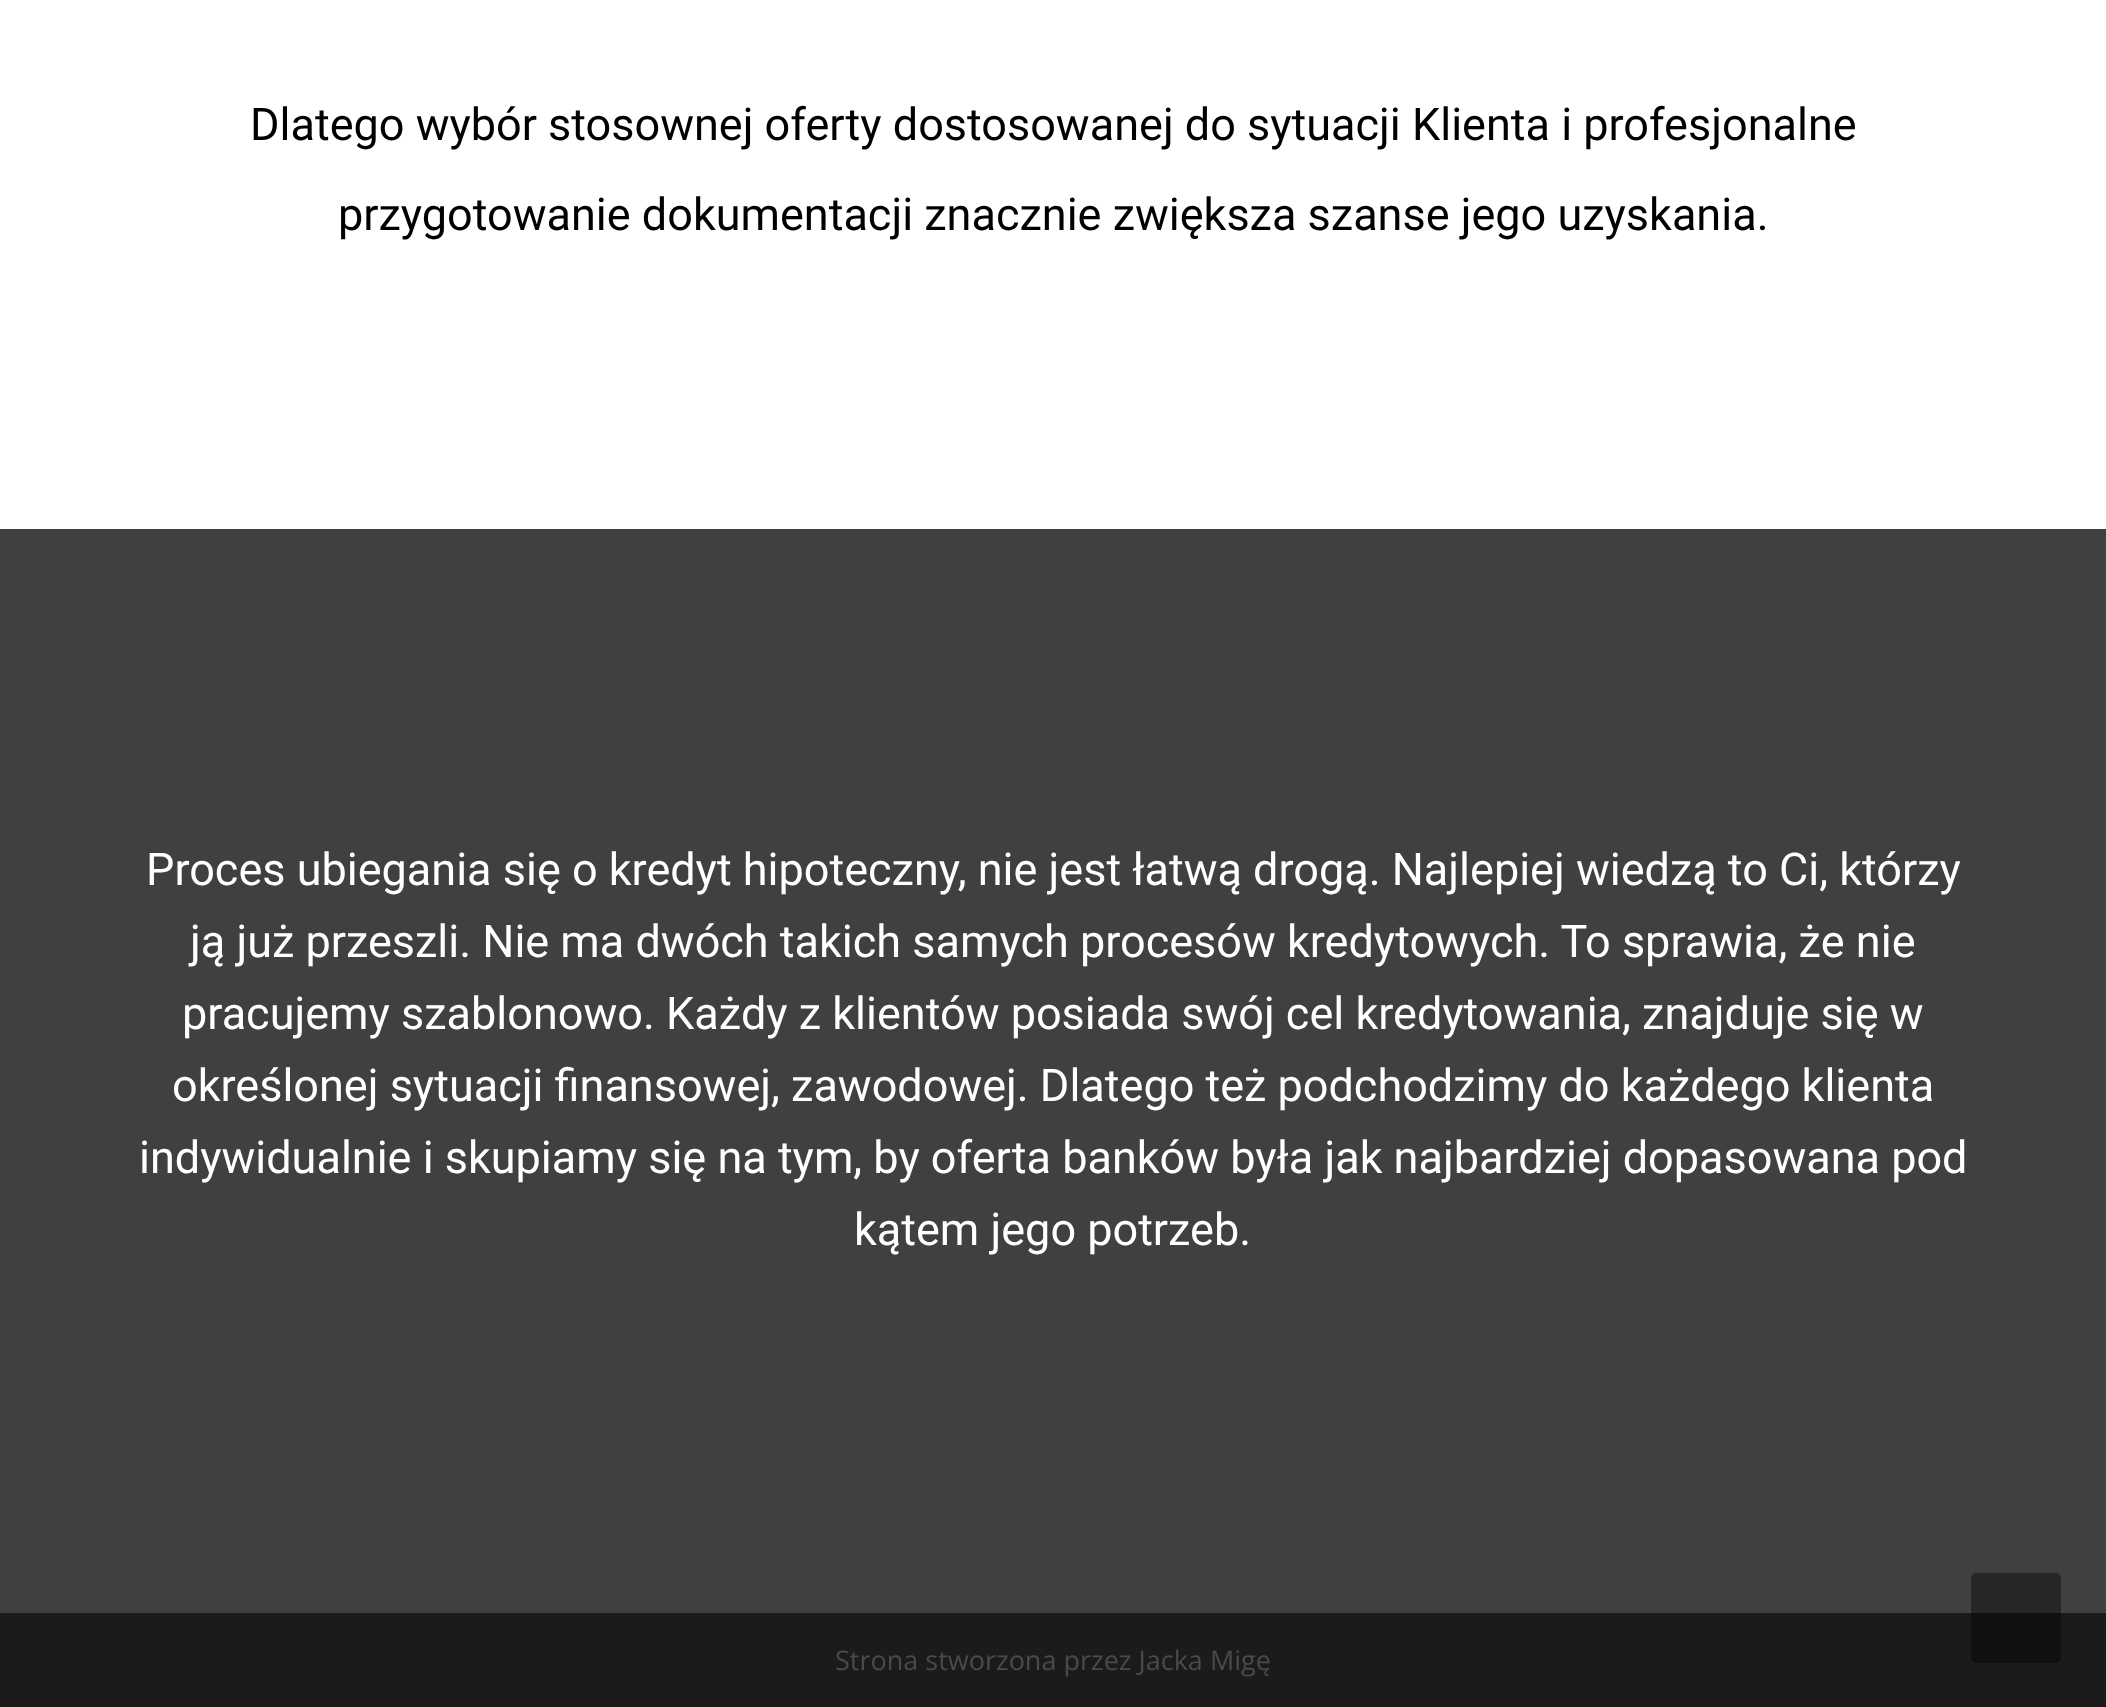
<svg xmlns="http://www.w3.org/2000/svg" width="2106" height="1707" viewBox="0 0 2106 1707">
  <style>
    .t1 { font: 45px Roboto; fill: #000; }
    .t2 { font: 45px Roboto; fill: #fff; }
    .t3 { font: 27px Open Sans; fill: #4a4a4a; }
  </style>
  <rect width="100%" height="100%" fill="#fff"/>
  <text x="250" y="140" class="t1">Dlatego wybór stosownej oferty dostosowanej do sytuacji Klienta i profesjonalne</text>
  <text x="338" y="230" class="t1">przygotowanie dokumentacji znacznie zwiększa szanse jego uzyskania.</text>
  <rect x="0" y="529" width="2106" height="1084" fill="#404040"/>
  <text x="146" y="885" class="t2">Proces ubiegania się o kredyt hipoteczny, nie jest łatwą drogą. Najlepiej wiedzą to Ci, którzy</text>
  <text x="190" y="957" class="t2">ją już przeszli. Nie ma dwóch takich samych procesów kredytowych. To sprawia, że nie</text>
  <text x="182" y="1029" class="t2">pracujemy szablonowo. Każdy z klientów posiada swój cel kredytowania, znajduje się w</text>
  <text x="172" y="1101" class="t2">określonej sytuacji finansowej, zawodowej. Dlatego też podchodzimy do każdego klienta</text>
  <text x="139" y="1173" class="t2">indywidualnie i skupiamy się na tym, by oferta banków była jak najbardziej dopasowana pod</text>
  <text x="854" y="1245" class="t2">kątem jego potrzeb.</text>
  <rect x="0" y="1613" width="2106" height="94" fill="#1b1b1b"/>
  <text x="835" y="1670" class="t3">Strona stworzona przez Jacka Migę</text>
  <rect x="1971" y="1573" width="90" height="90" rx="5" fill="#00000066"/>
</svg>
